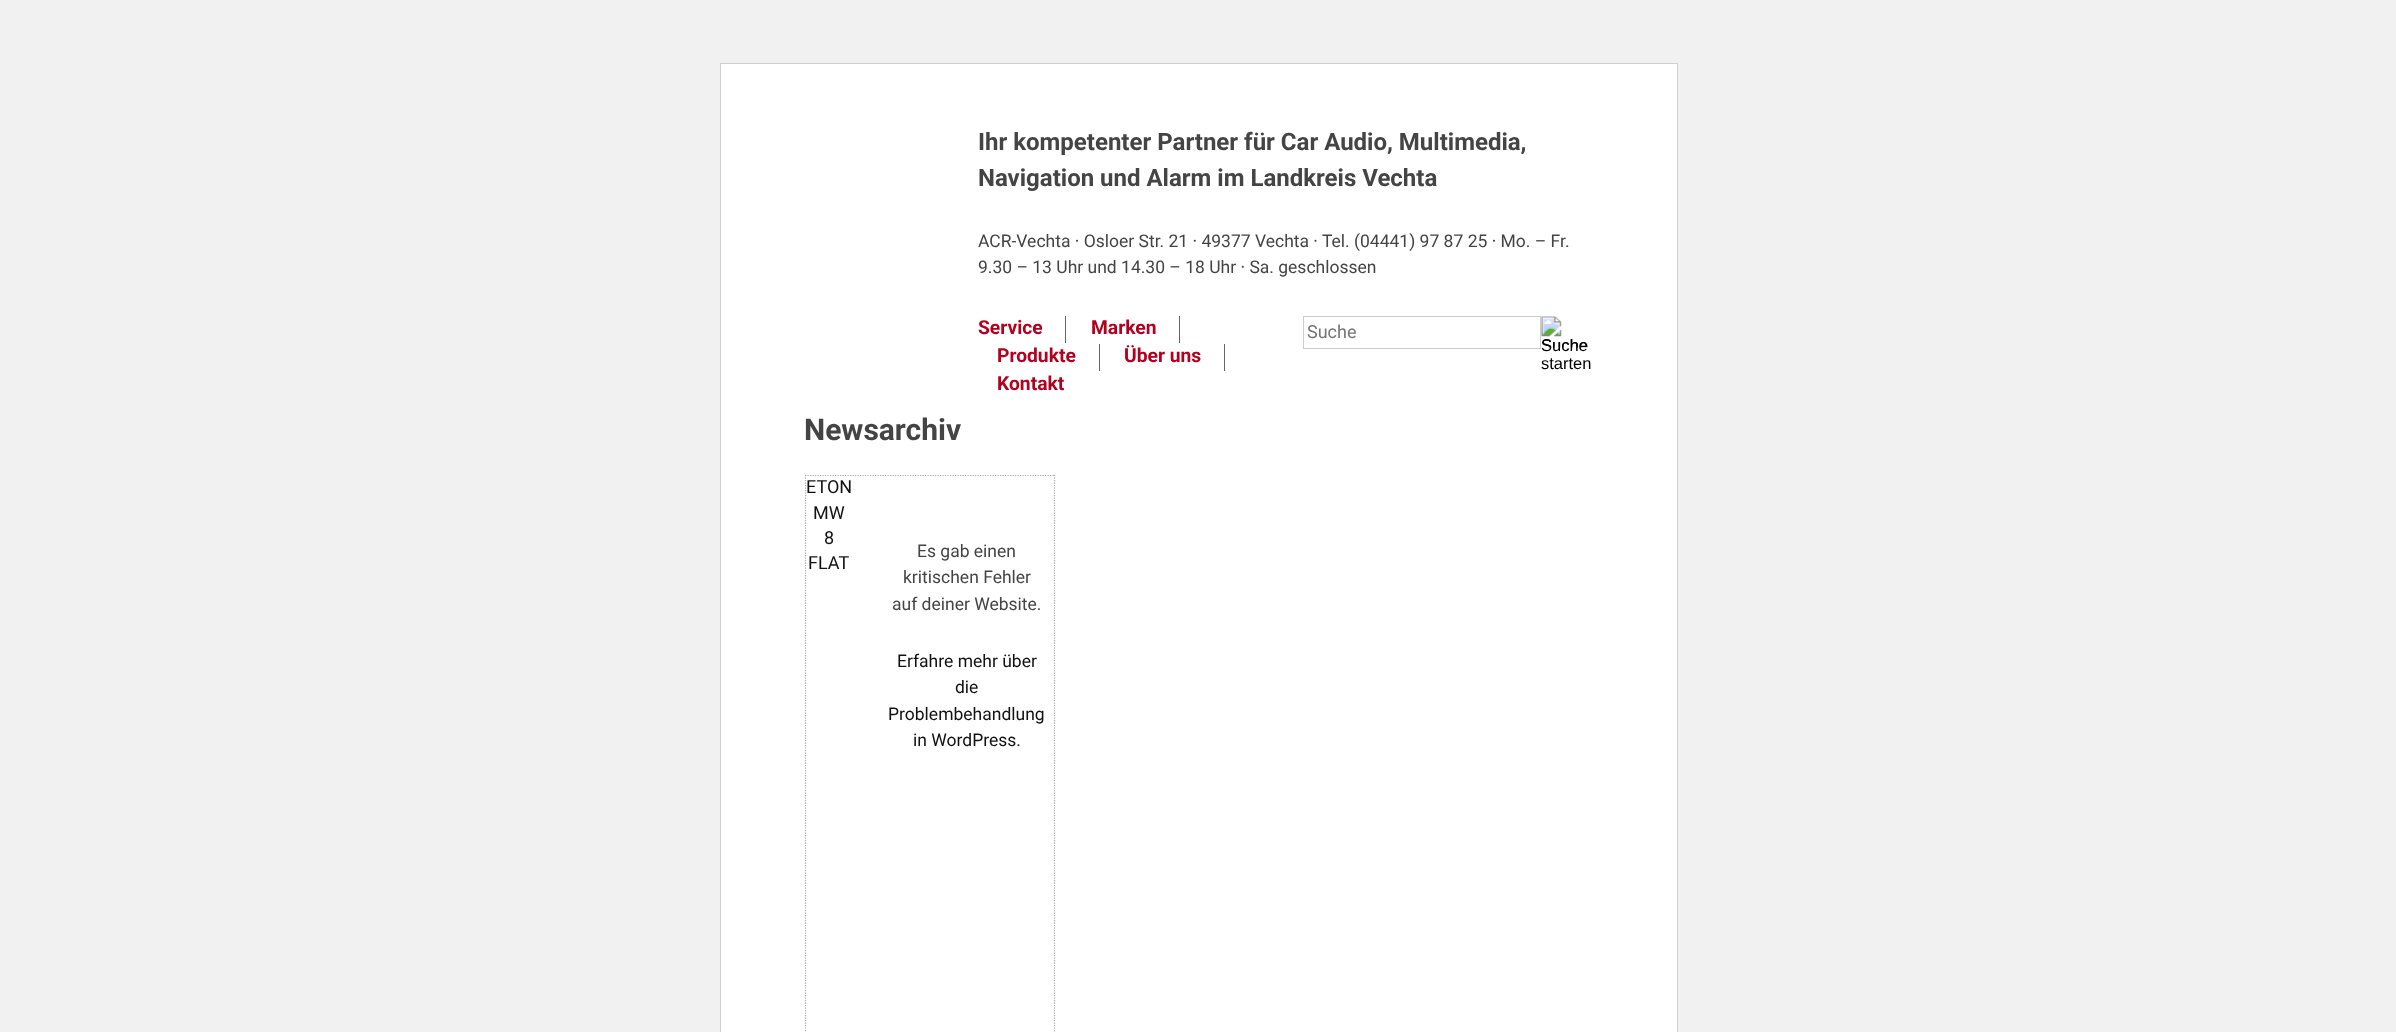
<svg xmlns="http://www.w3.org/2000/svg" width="2396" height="1032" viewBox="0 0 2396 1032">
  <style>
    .t1 { font: bold 24px Roboto; fill: #444; }
    .t2 { font: 17.5px Roboto; fill: #444; }
    .t3 { font: bold 19.25px Roboto; fill: #b3001e; }
    .t4 { font: 18px Roboto; fill: #757575; }
    .t5 { font: 16.5px Liberation Sans; fill: #000; }
    .t6 { font: bold 30px Roboto; fill: #444; }
    .t7 { font: 18px Roboto; fill: #111; }
    .t8 { font: 17.5px Roboto; fill: #111; }
  </style>
  <rect width="100%" height="100%" fill="#f1f1f1"/>
  <rect x="720.5" y="63.5" width="957" height="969" fill="#fff" stroke="#ccd0d4"/>
  <text x="978" y="150" class="t1">Ihr kompetenter Partner für Car Audio, Multimedia,</text>
  <text x="978" y="186" class="t1">Navigation und Alarm im Landkreis Vechta</text>
  <text x="978" y="247" class="t2">ACR-Vechta · Osloer Str. 21 · 49377 Vechta · Tel. (04441) 97 87 25 · Mo. – Fr.</text>
  <text x="978" y="273" class="t2">9.30 – 13 Uhr und 14.30 – 18 Uhr · Sa. geschlossen</text>
  <rect x="1065" y="316" width="1" height="27" fill="#666"/>
  <text x="978" y="334" class="t3">Service</text>
  <rect x="1179" y="316" width="1" height="27" fill="#666"/>
  <text x="1091" y="334" class="t3">Marken</text>
  <rect x="1099" y="344" width="1" height="27" fill="#666"/>
  <text x="997" y="362" class="t3">Produkte</text>
  <rect x="1224" y="344" width="1" height="27" fill="#666"/>
  <text x="1124" y="362" class="t3">Über uns</text>
  <text x="997" y="390" class="t3">Kontakt</text>
  <rect x="1303.5" y="316.5" width="237" height="32" fill="none" stroke="#ccc"/>
  <text x="1307" y="338" class="t4">Suche</text>
  <image x="1541" y="316" width="47" height="32" href="images/1.png"/>
  <text x="1541" y="351" class="t5">Suche</text>
  <text x="1541" y="369" class="t5">starten</text>
  <text x="804" y="440" class="t6">Newsarchiv</text>
  <path d="M805 475.5H1055" fill="none" stroke="#aaa" stroke-width="1.2" stroke-dasharray="1.25 1.25"/>
  <path d="M1054.5 475V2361" fill="none" stroke="#aaa" stroke-width="1.2" stroke-dasharray="1.25 1.25"/>
  <path d="M805.5 475V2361" fill="none" stroke="#aaa" stroke-width="1.2" stroke-dasharray="1.25 1.25"/>
  <text x="806" y="493" class="t7">ETON</text>
  <text x="813" y="519" class="t7">MW</text>
  <text x="824" y="544" class="t7">8</text>
  <text x="808" y="569" class="t7">FLAT</text>
  <text x="917" y="557" class="t2">Es gab einen</text>
  <text x="903" y="583" class="t2">kritischen Fehler</text>
  <text x="892" y="610" class="t2">auf deiner Website.</text>
  <text x="897" y="667" class="t8">Erfahre mehr über</text>
  <text x="955" y="693" class="t8">die</text>
  <text x="888" y="720" class="t8">Problembehandlung</text>
  <text x="913" y="746" class="t8">in WordPress.</text>
</svg>
